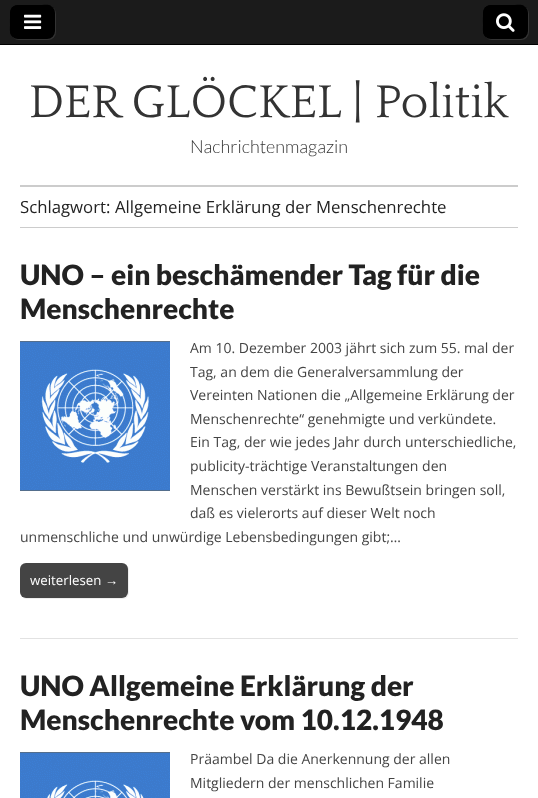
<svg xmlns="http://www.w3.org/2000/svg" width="538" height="798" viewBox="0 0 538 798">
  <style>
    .t1 { font: 48px Quattrocento; fill: #333; }
    .t2 { font: 300 18px Lato; fill: #333; }
    .t3 { font: 16.75px Open Sans; fill: #222; }
    .t4 { font: 900 28px Lato; fill: #222; }
    .t5 { font: 14px Open Sans; fill: #444; }
    .t6 { font: 13.25px Open Sans; fill: #fff; }
    .t7 { font: 13.25px Liberation Sans; fill: #fff; }
  </style>
  <rect width="100%" height="100%" fill="#fff"/>
  <rect x="0" y="0" width="538" height="44" fill="#1b1b1b"/>
  <rect x="0" y="44" width="538" height="1" fill="#000"/>
  <rect x="11" y="6" width="45" height="34" rx="8" fill="#333" filter="blur(0.5px)"/>
  <rect x="10" y="5" width="45" height="34" rx="8" fill="#000"/>
  <path d="M19 6H50L52 7C49 4 46 5 42 5H32C10 5 10 3 10 25C10 29 9 34 13 37C10 33 10 13 13 9C14 7 16 6 19 6Z" fill="#000"/>
  <image x="24" y="14" width="18" height="15" href="images/1.png"/>
  <rect x="484" y="6" width="45" height="34" rx="8" fill="#333" filter="blur(0.5px)"/>
  <rect x="483" y="5" width="45" height="34" rx="8" fill="#000"/>
  <path d="M492 6H523L525 7C522 4 519 5 515 5H506C483 5 483 3 483 25C483 29 482 34 486 37C483 33 483 13 486 9C487 7 489 6 492 6Z" fill="#000"/>
  <image x="496" y="13" width="19" height="19" href="images/2.png"/>
  <text x="29" y="117" class="t1">DER GLÖCKEL | Politik</text>
  <text x="190" y="153" class="t2">Nachrichtenmagazin</text>
  <rect x="20" y="185" width="498" height="2" fill="#ccc"/>
  <rect x="20" y="227" width="498" height="1" fill="#ccc"/>
  <text x="20" y="213" class="t3">Schlagwort:</text>
  <text x="115" y="213" class="t3">Allgemeine Erklärung der Menschenrechte</text>
  <rect x="20" y="638" width="498" height="1" fill="#e2e2e2"/>
  <text x="20" y="285" class="t4">UNO – ein beschämender Tag für die</text>
  <text x="20" y="319" class="t4">Menschenrechte</text>
  <image x="20" y="341" width="150" height="150" href="images/3.png"/>
  <text x="190" y="353" class="t5">Am 10. Dezember 2003 jährt sich zum 55. mal der</text>
  <text x="190" y="377" class="t5">Tag, an dem die Generalversammlung der</text>
  <text x="190" y="400" class="t5">Vereinten Nationen die „Allgemeine Erklärung der</text>
  <text x="190" y="424" class="t5">Menschenrechte“ genehmigte und verkündete.</text>
  <text x="190" y="447" class="t5">Ein Tag, der wie jedes Jahr durch unterschiedliche,</text>
  <text x="190" y="471" class="t5">publicity-trächtige Veranstaltungen den</text>
  <text x="190" y="495" class="t5">Menschen verstärkt ins Bewußtsein bringen soll,</text>
  <text x="190" y="518" class="t5">daß es vielerorts auf dieser Welt noch</text>
  <text x="20" y="542" class="t5">unmenschliche und unwürdige Lebensbedingungen gibt;…</text>
  <path d="M22 597C23 598 25 599 27 599H123C126 599 129 596 129 593V570C129 568 128 566 127 565C128 566 128 568 128 569V592C128 595 125 598 122 598H26C25 598 23 598 22 597Z" fill="#eee"/>
  <rect x="20" y="563" width="108" height="35" rx="6" fill="#444"/>
  <text x="30" y="585" class="t6">weiterlesen</text>
  <text x="105" y="585" class="t7">→</text>
  <text x="20" y="696" class="t4">UNO Allgemeine Erklärung der</text>
  <text x="20" y="730" class="t4">Menschenrechte vom 10.12.1948</text>
  <image x="20" y="752" width="150" height="46" href="images/4.png"/>
  <text x="190" y="764" class="t5">Präambel Da die Anerkennung der allen</text>
  <text x="190" y="788" class="t5">Mitgliedern der menschlichen Familie</text>
</svg>
